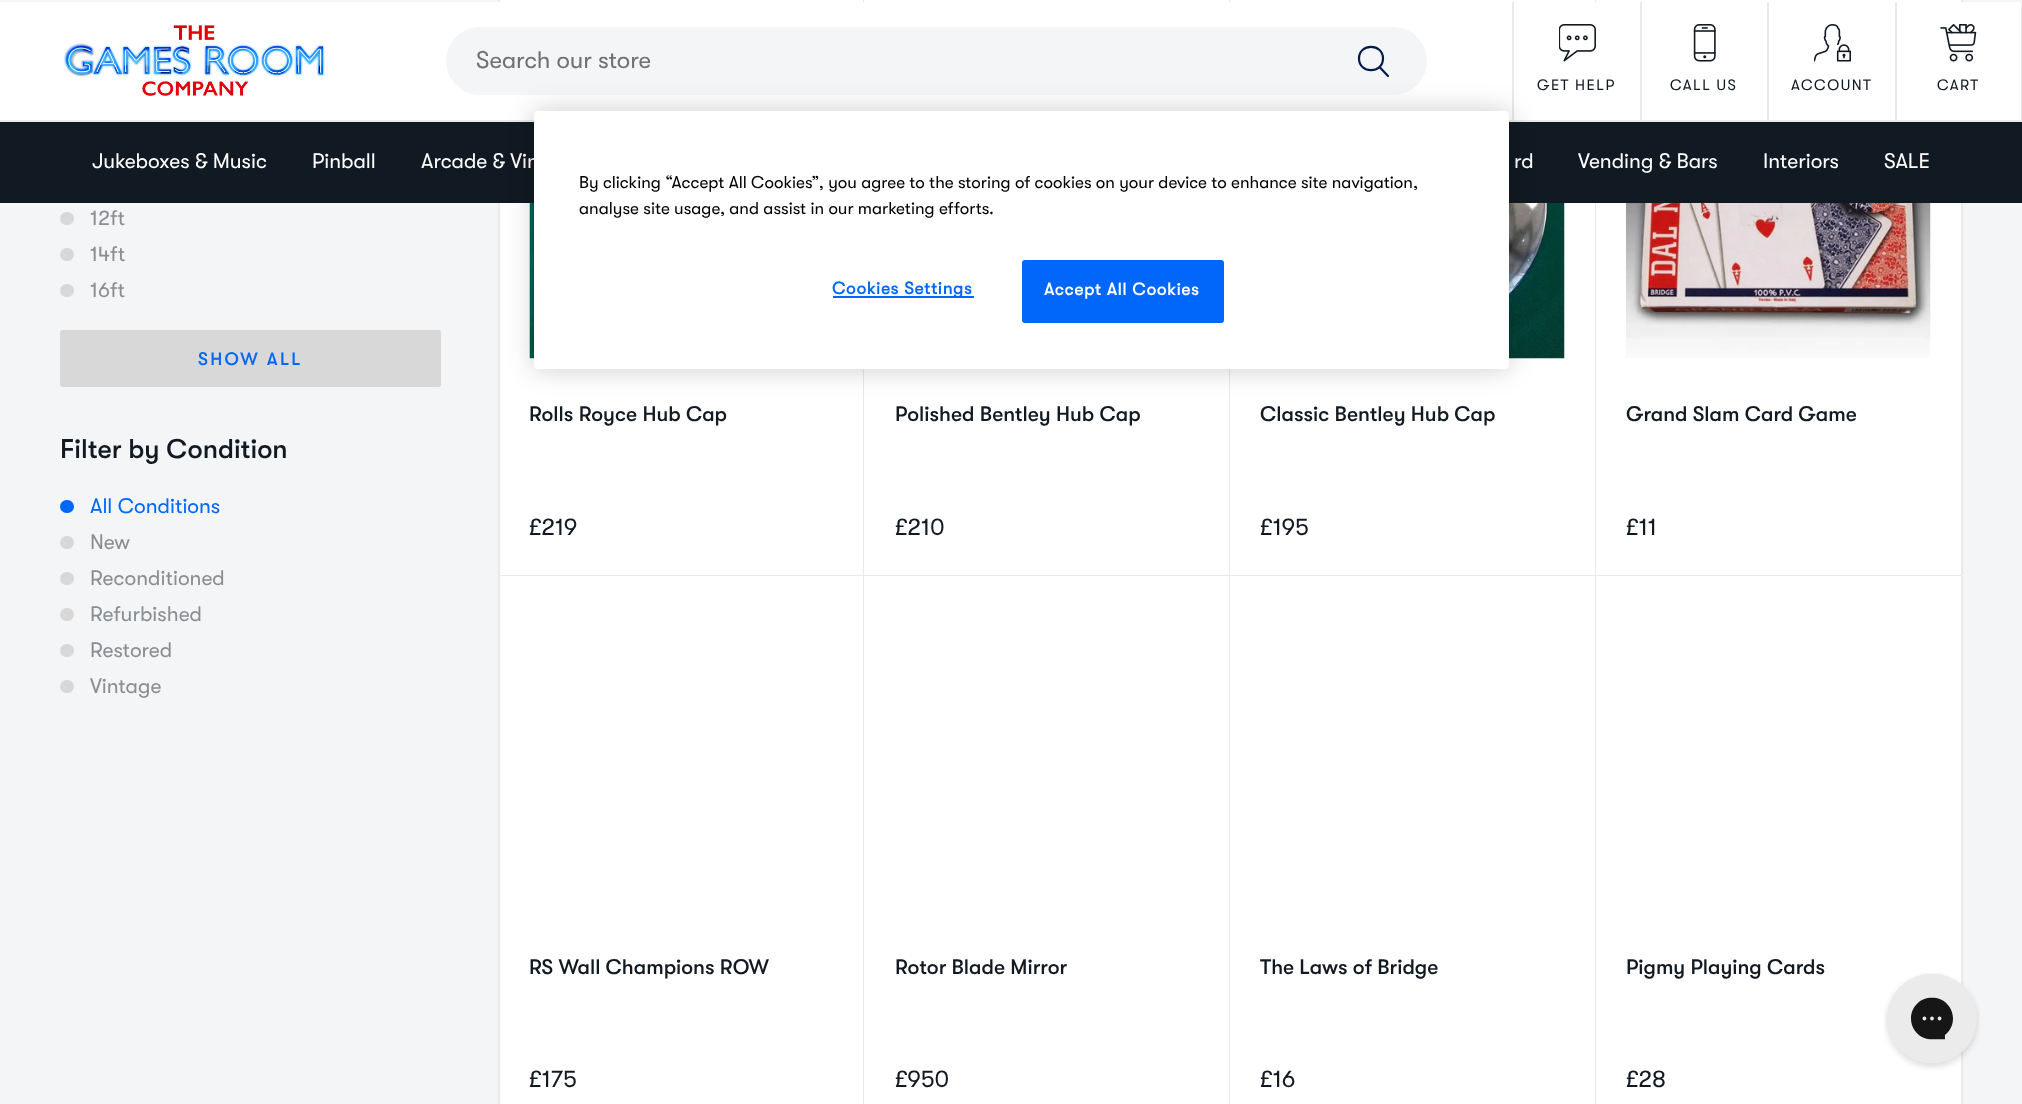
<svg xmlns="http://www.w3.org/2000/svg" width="2022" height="1104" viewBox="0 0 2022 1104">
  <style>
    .t1 { font: 24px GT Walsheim; fill: #707171; }
    .t2 { font: 15px GT Walsheim; letter-spacing: 1.5px; fill: #111922; }
    .t3 { font: 21px GT Walsheim; fill: #fff; }
    .t4 { font: 17.05px GT Walsheim; fill: #000; }
    .t5 { font: bold 17.05px GT Walsheim; letter-spacing: 0.8px; fill: #0067fb; }
    .t6 { font: bold 17.05px GT Walsheim; letter-spacing: 0.8px; fill: #fff; }
    .t7 { font: 21px GT Walsheim; fill: #8a8e92; }
    .t8 { font: 500 18px GT Walsheim; letter-spacing: 2.25px; fill: #0067fb; }
    .t9 { font: 500 27px GT Walsheim; fill: #111922; }
    .t10 { font: 21px GT Walsheim; fill: #0067fb; }
    .t11 { font: 500 21px GT Walsheim; fill: #111922; }
    .t12 { font: 24px GT Walsheim; fill: #111922; }
  </style>
  <rect width="100%" height="100%" fill="#f4f5f6"/>
  <rect x="498" y="0" width="2" height="1104" fill="#eaeaea"/>
  <rect x="0" y="2" width="2021" height="118" fill="#fff"/>
  <rect x="0" y="120" width="2022" height="2" fill="#eaeaea"/>
  <image x="63" y="25" width="262" height="71" href="images/1.png"/>
  <rect x="446" y="27" width="981" height="68" rx="34" fill="#f4f5f6"/>
  <text x="476" y="68" class="t1">Search our store</text>
  <path d="M1383 58.5C1383 74 1359 74 1359 58.5C1359 43 1383 43 1383 58.5ZM1388 76L1379.5 67" fill="none" stroke="#001b4c" stroke-width="2.2" stroke-linecap="round" stroke-linejoin="round"/>
  <rect x="1512" y="2" width="2" height="118" fill="#eaeaea"/>
  <image x="1559" y="24" width="37" height="38" href="images/2.png"/>
  <text x="1537" y="90" class="t2">GET HELP</text>
  <rect x="1640" y="2" width="2" height="118" fill="#eaeaea"/>
  <image x="1693" y="24" width="23" height="38" href="images/3.png"/>
  <text x="1670" y="90" class="t2">CALL US</text>
  <rect x="1767" y="2" width="2" height="118" fill="#eaeaea"/>
  <image x="1814" y="24" width="37" height="38" href="images/4.png"/>
  <text x="1791" y="90" class="t2">ACCOUNT</text>
  <rect x="2021" y="2" width="1" height="118" fill="#eaeaea"/>
  <rect x="1895" y="2" width="2" height="118" fill="#eaeaea"/>
  <image x="1940" y="24" width="37" height="38" href="images/5.png"/>
  <text x="1937" y="90" class="t2">CART</text>
  <rect x="0" y="122" width="2022" height="81" fill="#111922"/>
  <text x="92" y="168" class="t3">Jukeboxes &amp; Music</text>
  <text x="312" y="168" class="t3">Pinball</text>
  <text x="421" y="168" class="t3">Arcade &amp; Vin</text>
  <text x="1514" y="168" class="t3">rd</text>
  <text x="1578" y="168" class="t3">Vending &amp; Bars</text>
  <text x="1763" y="168" class="t3">Interiors</text>
  <text x="1884" y="168" class="t3">SALE</text>
  <rect x="500" y="203" width="363" height="372" fill="#fff"/>
  <rect x="863" y="369" width="1" height="206" fill="#eaeaea"/>
  <image x="529" y="203" width="5" height="156" href="images/6.png"/>
  <rect x="864" y="369" width="365" height="206" fill="#fff"/>
  <rect x="1229" y="369" width="1" height="206" fill="#eaeaea"/>
  <rect x="1230" y="203" width="365" height="372" fill="#fff"/>
  <image x="1509" y="203" width="56" height="156" href="images/7.png"/>
  <rect x="534" y="111" width="975" height="258" rx="4" fill="#00000033" filter="blur(13.5px)"/>
  <rect x="534" y="111" width="975" height="258" rx="4" fill="#fff"/>
  <text x="579" y="188" class="t4">By clicking “Accept All Cookies”, you agree to the storing of cookies on your device to enhance site navigation,</text>
  <text x="579" y="214" class="t4">analyse site usage, and assist in our marketing efforts.</text>
  <rect x="833" y="296" width="141" height="2" fill="#0167fb"/>
  <text x="832" y="294" class="t5">Cookies Settings</text>
  <rect x="1023" y="261" width="200" height="61" rx="2" fill="#0167fb" stroke="#0167fb" stroke-width="2"/>
  <text x="1044" y="295" class="t6">Accept All Cookies</text>
  <rect x="60" y="212" width="14" height="13" rx="6.5" fill="#d8d8d8"/>
  <text x="90" y="225" class="t7">12ft</text>
  <rect x="60" y="248" width="14" height="13" rx="6.5" fill="#d8d8d8"/>
  <text x="90" y="261" class="t7">14ft</text>
  <rect x="60" y="284" width="14" height="13" rx="6.5" fill="#d8d8d8"/>
  <text x="90" y="297" class="t7">16ft</text>
  <rect x="60" y="330" width="381" height="57" rx="3" fill="#d8d8d8"/>
  <text x="198" y="365" class="t8">SHOW ALL</text>
  <text x="60" y="458" class="t9">Filter by Condition</text>
  <rect x="60" y="500" width="14" height="13" rx="6.5" fill="#0067fb"/>
  <text x="90" y="513" class="t10">All Conditions</text>
  <rect x="60" y="536" width="14" height="13" rx="6.5" fill="#d8d8d8"/>
  <text x="90" y="549" class="t7">New</text>
  <rect x="60" y="572" width="14" height="13" rx="6.5" fill="#d8d8d8"/>
  <text x="90" y="585" class="t7">Reconditioned</text>
  <rect x="60" y="608" width="14" height="13" rx="6.5" fill="#d8d8d8"/>
  <text x="90" y="621" class="t7">Refurbished</text>
  <rect x="60" y="644" width="14" height="13" rx="6.5" fill="#d8d8d8"/>
  <text x="90" y="657" class="t7">Restored</text>
  <rect x="60" y="680" width="14" height="13" rx="6.5" fill="#d8d8d8"/>
  <text x="90" y="693" class="t7">Vintage</text>
  <rect x="500" y="0" width="363" height="2" fill="#fff"/>
  <rect x="863" y="0" width="1" height="2" fill="#eaeaea"/>
  <rect x="864" y="0" width="365" height="2" fill="#fff"/>
  <rect x="1229" y="0" width="1" height="2" fill="#eaeaea"/>
  <rect x="1230" y="0" width="365" height="2" fill="#fff"/>
  <rect x="1595" y="0" width="1" height="2" fill="#eaeaea"/>
  <rect x="1596" y="0" width="365" height="2" fill="#fff"/>
  <rect x="1961" y="0" width="2" height="2" fill="#eaeaea"/>
  <rect x="500" y="575" width="1462" height="1" fill="#eaeaea"/>
  <text x="529" y="421" class="t11">Rolls Royce Hub Cap</text>
  <text x="529" y="535" class="t12">£219</text>
  <text x="895" y="421" class="t11">Polished Bentley Hub Cap</text>
  <text x="895" y="535" class="t12">£210</text>
  <rect x="1595" y="203" width="1" height="372" fill="#eaeaea"/>
  <text x="1260" y="421" class="t11">Classic Bentley Hub Cap</text>
  <text x="1260" y="535" class="t12">£195</text>
  <rect x="1596" y="203" width="365" height="372" fill="#fff"/>
  <rect x="1961" y="203" width="2" height="372" fill="#eaeaea"/>
  <image x="1626" y="203" width="305" height="155" href="images/8.png"/>
  <text x="1626" y="421" class="t11">Grand Slam Card Game</text>
  <text x="1626" y="535" class="t12">£11</text>
  <rect x="500" y="576" width="363" height="528" fill="#fff"/>
  <rect x="863" y="576" width="1" height="528" fill="#eaeaea"/>
  <text x="529" y="974" class="t11">RS Wall Champions ROW</text>
  <text x="529" y="1087" class="t12">£175</text>
  <rect x="864" y="576" width="365" height="528" fill="#fff"/>
  <rect x="1229" y="576" width="1" height="528" fill="#eaeaea"/>
  <text x="895" y="974" class="t11">Rotor Blade Mirror</text>
  <text x="895" y="1087" class="t12">£950</text>
  <rect x="1230" y="576" width="365" height="528" fill="#fff"/>
  <rect x="1595" y="576" width="1" height="528" fill="#eaeaea"/>
  <text x="1260" y="974" class="t11">The Laws of Bridge</text>
  <text x="1260" y="1087" class="t12">£16</text>
  <rect x="1596" y="576" width="365" height="528" fill="#fff"/>
  <rect x="1961" y="576" width="2" height="528" fill="#eaeaea"/>
  <text x="1626" y="974" class="t11">Pigmy Playing Cards</text>
  <text x="1626" y="1087" class="t12">£28</text>
  <image x="1884" y="973" width="96" height="97" href="images/9.png"/>
</svg>
